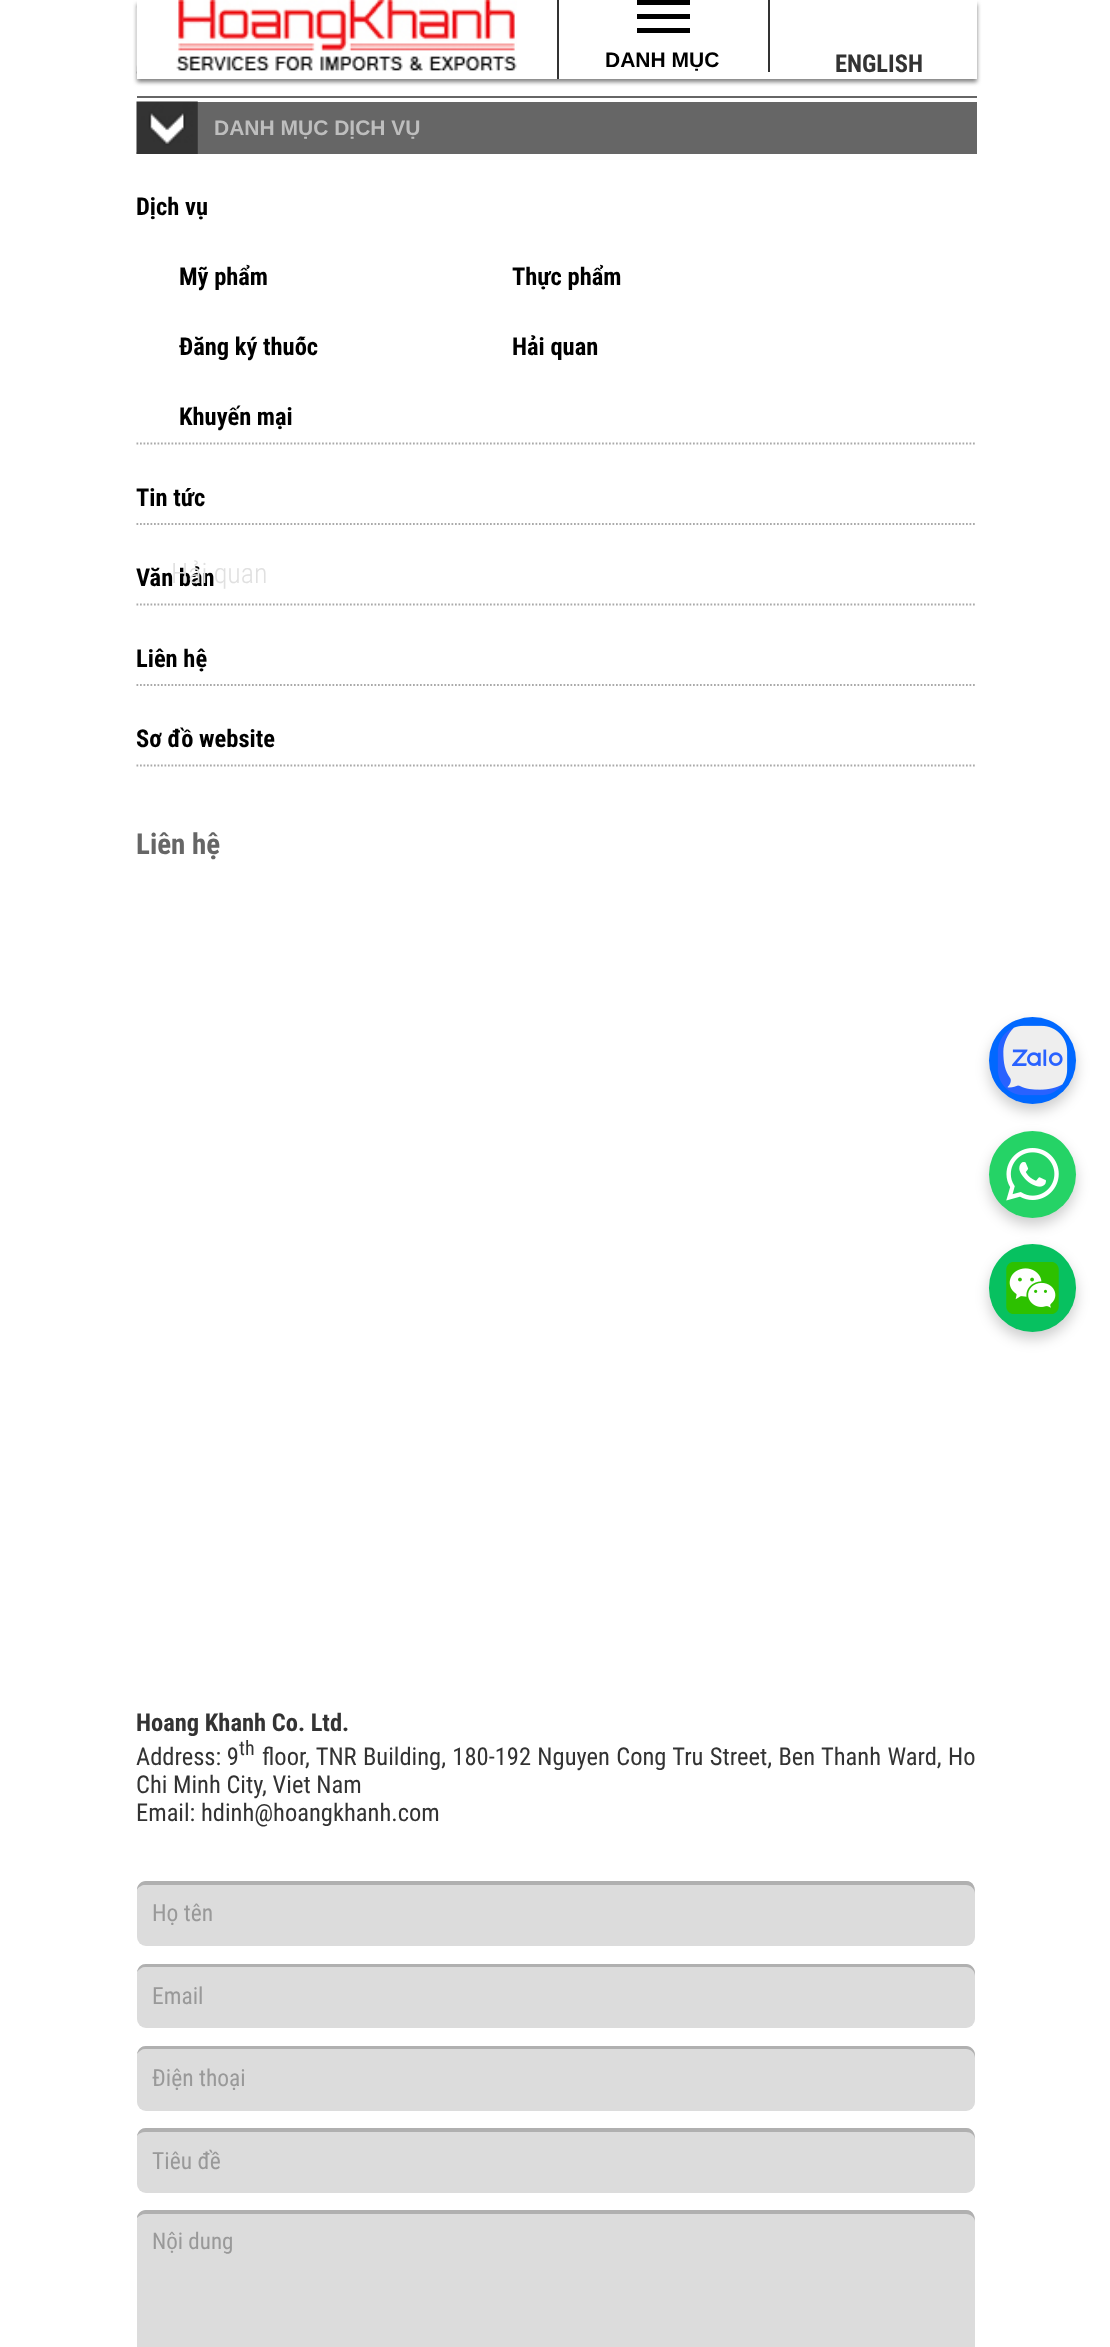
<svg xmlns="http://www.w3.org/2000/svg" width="1110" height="2347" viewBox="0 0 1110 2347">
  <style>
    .t1 { font: bold 21px Liberation Sans; fill: #000; }
    .t2 { font: bold 24.5px Roboto Condensed; fill: #333; }
    .t3 { font: bold 21px Liberation Sans; fill: #bebebe; }
    .t4 { font: bold 24.5px Roboto Condensed; fill: #000; }
    .t5 { font: 300 28px Roboto Condensed; fill: #e0e0e0; }
    .t6 { font: bold 29px Roboto Condensed; fill: #666; }
    .t7 { font: 24.5px Roboto Condensed; fill: #333; }
    .t8 { font: 20px Roboto Condensed; fill: #333; }
    .t9 { font: 23.5px Roboto Condensed; fill: #999; }
    .t10 { font: 23px Roboto Condensed; fill: #999; }
  </style>
  <defs>
    <clipPath id="clip1"><path d="M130 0H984V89H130ZM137 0H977V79H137Z" clip-rule="evenodd"/></clipPath>
  </defs>
  <rect width="100%" height="100%" fill="#fff"/>
  <path d="M136.5 72.5H976.5" fill="none" stroke="#aaa" stroke-width="1.8" stroke-dasharray="1.75 1.75"/>
  <rect x="137" y="71" width="838" height="3" fill="#fff"/>
  <g clip-path="url(#clip1)">
    <rect x="137" y="4" width="840" height="78" fill="#808080" filter="blur(2px)"/>
  </g>
  <rect x="557" y="0" width="2" height="79" fill="#333"/>
  <image x="136" y="0" width="381" height="71" href="images/1.png"/>
  <rect x="768" y="0" width="2" height="72" fill="#333"/>
  <rect x="637" y="28" width="53" height="5" fill="#000"/>
  <rect x="637" y="14" width="53" height="5" fill="#000"/>
  <rect x="637" y="0" width="53" height="5" fill="#000"/>
  <text x="605" y="67" class="t1">DANH MỤC</text>
  <text x="835" y="72" class="t2">ENGLISH</text>
  <rect x="137" y="96" width="840" height="2" fill="#666"/>
  <path d="M136.5 153H976.5" fill="none" stroke="#aaa" stroke-width="1.8" stroke-dasharray="1.75 1.75"/>
  <rect x="197" y="102" width="780" height="52" fill="#666"/>
  <image x="136" y="101" width="62" height="53" href="images/2.png"/>
  <text x="214" y="135" class="t3">DANH MỤC DỊCH VỤ</text>
  <text x="136" y="586" class="t4">Văn bản</text>
  <text x="171" y="583" class="t5">Hải quan</text>
  <path d="M136.5 443.5H976.5" fill="none" stroke="#aaa" stroke-width="1.8" stroke-dasharray="1.75 1.75"/>
  <text x="136" y="215" class="t4">Dịch vụ</text>
  <text x="179" y="285" class="t4">Mỹ phẩm</text>
  <text x="512" y="285" class="t4">Thực phẩm</text>
  <text x="179" y="355" class="t4">Đăng ký thuốc</text>
  <text x="512" y="355" class="t4">Hải quan</text>
  <text x="179" y="425" class="t4">Khuyến mại</text>
  <path d="M136.5 524H976.5" fill="none" stroke="#aaa" stroke-width="1.8" stroke-dasharray="1.75 1.75"/>
  <text x="136" y="506" class="t4">Tin tức</text>
  <path d="M136.5 604.5H976.5" fill="none" stroke="#aaa" stroke-width="1.8" stroke-dasharray="1.75 1.75"/>
  <path d="M136.5 685H976.5" fill="none" stroke="#aaa" stroke-width="1.8" stroke-dasharray="1.75 1.75"/>
  <text x="136" y="667" class="t4">Liên hệ</text>
  <path d="M136.5 765.5H976.5" fill="none" stroke="#aaa" stroke-width="1.8" stroke-dasharray="1.75 1.75"/>
  <text x="136" y="747" class="t4">Sơ đồ website</text>
  <text x="136" y="854" class="t6">Liên hệ</text>
  <text x="136" y="1731" class="t2">Hoang Khanh Co. Ltd.</text>
  <text x="136" y="1765" class="t7">Address: 9</text>
  <text x="239" y="1755" class="t8">th</text>
  <text x="262" y="1765" word-spacing="0.75" class="t7">floor, TNR Building, 180-192 Nguyen Cong Tru Street, Ben Thanh Ward, Ho</text>
  <text x="136" y="1793" class="t7">Chi Minh City, Viet Nam</text>
  <text x="136" y="1821" class="t7">Email: hdinh@hoangkhanh.com</text>
  <rect x="137" y="1881" width="838" height="65" rx="9" fill="#dcdcdc"/>
  <path d="M145 1885H966C971 1885 975 1889 975 1894C975 1888 974 1881 966 1881H146C141 1881 137 1885 137 1890C138 1887 142 1885 145 1885Z" fill="#b0b0b0"/>
  <text x="152" y="1921" class="t9">Họ tên</text>
  <rect x="137" y="1964" width="838" height="64" rx="9" fill="#dcdcdc"/>
  <path d="M145 1967H966C971 1967 975 1971 975 1976V1973C975 1968 971 1964 966 1964H146C141 1964 138 1967 137 1972C139 1969 142 1967 145 1967Z" fill="#b0b0b0"/>
  <text x="152" y="2004" class="t9">Email</text>
  <rect x="137" y="2046" width="838" height="65" rx="9" fill="#dcdcdc"/>
  <path d="M145 2049H966C971 2049 975 2053 975 2058V2055C975 2050 971 2046 966 2046H146C141 2046 138 2049 137 2054C139 2051 142 2049 145 2049Z" fill="#b0b0b0"/>
  <text x="152" y="2086" class="t9">Điện thoại</text>
  <rect x="137" y="2128" width="838" height="65" rx="9" fill="#dcdcdc"/>
  <path d="M145 2132H966C971 2132 975 2135 975 2140C975 2134 973 2128 966 2128H146C141 2128 138 2131 137 2136C139 2133 142 2132 145 2132Z" fill="#b0b0b0"/>
  <text x="152" y="2169" class="t9">Tiêu đề</text>
  <rect x="137" y="2210" width="838" height="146" rx="9" fill="#dcdcdc"/>
  <path d="M145 2214H966C971 2214 975 2218 975 2222C975 2216 973 2210 966 2210H146C141 2210 137 2214 137 2218C139 2216 142 2214 145 2214Z" fill="#b0b0b0"/>
  <text x="152" y="2249" class="t10">Nội dung</text>
  <rect x="989" y="1024" width="87" height="87" rx="43.5" fill="#00000033" filter="blur(7px)"/>
  <circle cx="1032.5" cy="1060.5" r="43.5" fill="#0068ff"/>
  <image x="997" y="1025" width="71" height="71" href="images/3.png"/>
  <rect x="989" y="1138" width="87" height="87" rx="43.5" fill="#00000033" filter="blur(7px)"/>
  <circle cx="1032.5" cy="1174.5" r="43.5" fill="#25d366"/>
  <image x="1006" y="1148" width="53" height="53" href="images/4.png"/>
  <rect x="989" y="1251" width="87" height="88" rx="43.5" fill="#00000033" filter="blur(7px)"/>
  <rect x="989" y="1244" width="87" height="88" rx="43.5" fill="#07c160"/>
  <image x="1006" y="1262" width="53" height="52" href="images/5.png"/>
</svg>
